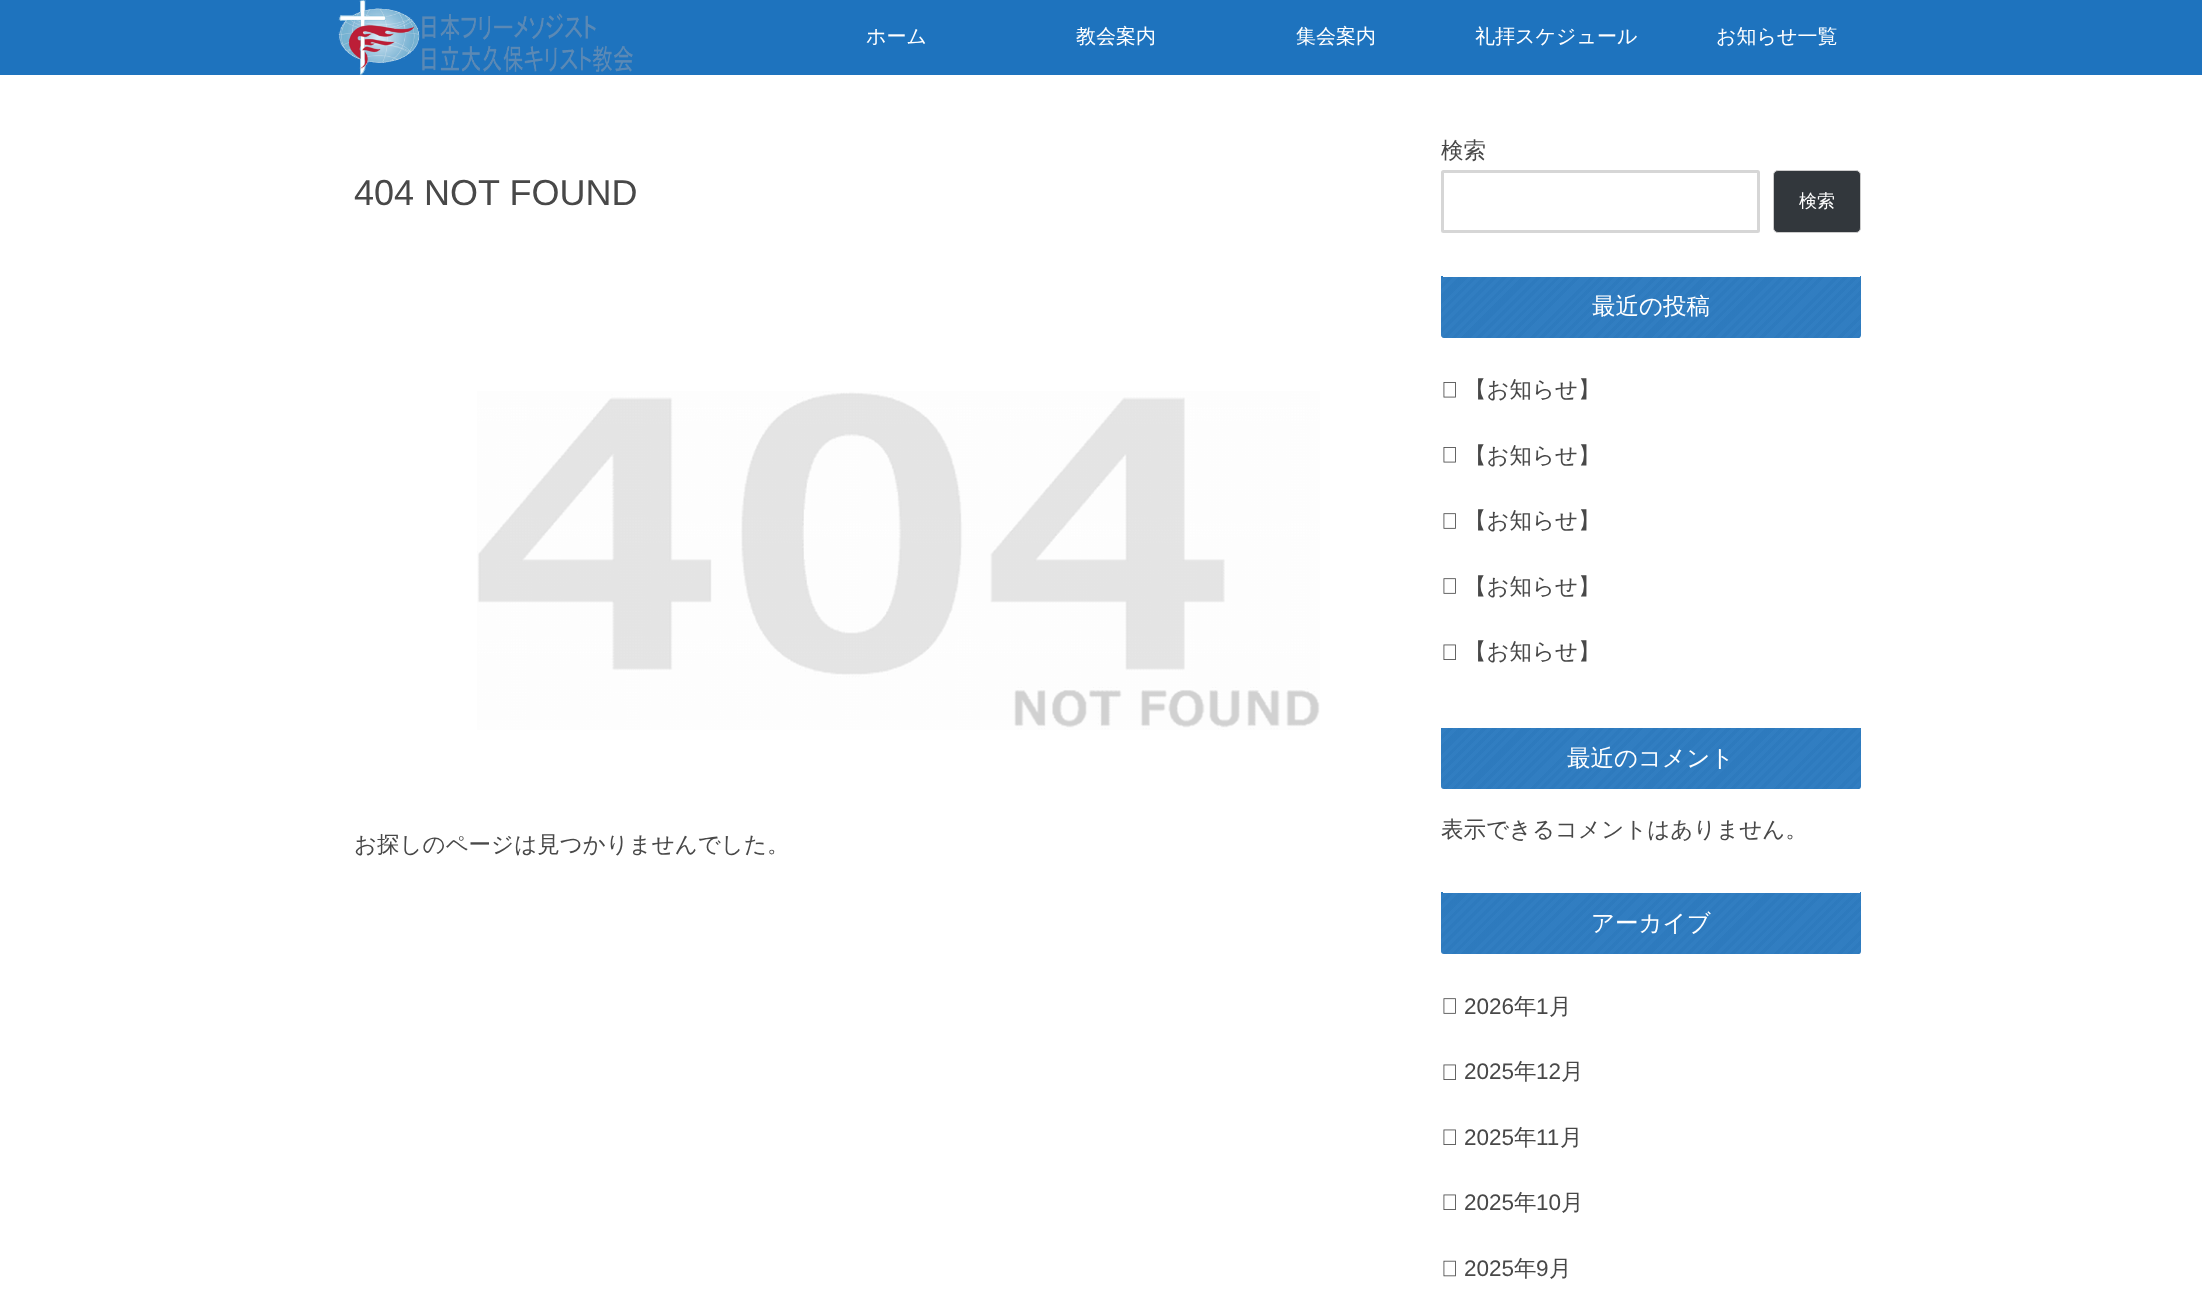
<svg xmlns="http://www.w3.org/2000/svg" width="2202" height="1301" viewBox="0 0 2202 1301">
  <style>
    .t1 { font: 500 20px WenQuanYi Zen Hei; fill: #fff; }
    .t2 { font: 36px Liberation Sans; fill: #484848; }
    .t3 { font: 500 22.5px WenQuanYi Zen Hei; fill: #484848; }
    .t4 { font: 500 18px WenQuanYi Zen Hei; fill: #fff; }
    .t5 { font: 500 23.5px WenQuanYi Zen Hei; fill: #fff; }
    .t6 { font: 22.5px Liberation Sans; fill: #484848; }
  </style>
  <defs>
    <linearGradient id="g1" gradientUnits="userSpaceOnUse" x1="1772" y1="427" x2="1528" y2="183"><stop offset="0" stop-color="#bbb" stop-opacity="0.1"/><stop offset="0.01" stop-color="#bbb" stop-opacity="0.1"/><stop offset="0.01" stop-color="#ddd" stop-opacity="0.1"/><stop offset="0.02" stop-color="#ddd" stop-opacity="0.1"/><stop offset="0.02" stop-color="#bbb" stop-opacity="0.1"/><stop offset="0.03" stop-color="#bbb" stop-opacity="0.1"/><stop offset="0.03" stop-color="#ddd" stop-opacity="0.1"/><stop offset="0.04" stop-color="#ddd" stop-opacity="0.1"/><stop offset="0.04" stop-color="#bbb" stop-opacity="0.1"/><stop offset="0.05" stop-color="#bbb" stop-opacity="0.1"/><stop offset="0.05" stop-color="#ddd" stop-opacity="0.1"/><stop offset="0.07" stop-color="#ddd" stop-opacity="0.1"/><stop offset="0.07" stop-color="#bbb" stop-opacity="0.1"/><stop offset="0.08" stop-color="#bbb" stop-opacity="0.1"/><stop offset="0.08" stop-color="#ddd" stop-opacity="0.1"/><stop offset="0.09" stop-color="#ddd" stop-opacity="0.1"/><stop offset="0.09" stop-color="#bbb" stop-opacity="0.1"/><stop offset="0.1" stop-color="#bbb" stop-opacity="0.1"/><stop offset="0.1" stop-color="#ddd" stop-opacity="0.1"/><stop offset="0.11" stop-color="#ddd" stop-opacity="0.1"/><stop offset="0.11" stop-color="#bbb" stop-opacity="0.1"/><stop offset="0.12" stop-color="#bbb" stop-opacity="0.1"/><stop offset="0.12" stop-color="#ddd" stop-opacity="0.1"/><stop offset="0.13" stop-color="#ddd" stop-opacity="0.1"/><stop offset="0.13" stop-color="#bbb" stop-opacity="0.1"/><stop offset="0.14" stop-color="#bbb" stop-opacity="0.1"/><stop offset="0.14" stop-color="#ddd" stop-opacity="0.1"/><stop offset="0.15" stop-color="#ddd" stop-opacity="0.1"/><stop offset="0.15" stop-color="#bbb" stop-opacity="0.1"/><stop offset="0.16" stop-color="#bbb" stop-opacity="0.1"/><stop offset="0.16" stop-color="#ddd" stop-opacity="0.1"/><stop offset="0.17" stop-color="#ddd" stop-opacity="0.1"/><stop offset="0.17" stop-color="#bbb" stop-opacity="0.1"/><stop offset="0.18" stop-color="#bbb" stop-opacity="0.1"/><stop offset="0.18" stop-color="#ddd" stop-opacity="0.1"/><stop offset="0.2" stop-color="#ddd" stop-opacity="0.1"/><stop offset="0.2" stop-color="#bbb" stop-opacity="0.1"/><stop offset="0.21" stop-color="#bbb" stop-opacity="0.1"/><stop offset="0.21" stop-color="#ddd" stop-opacity="0.1"/><stop offset="0.22" stop-color="#ddd" stop-opacity="0.1"/><stop offset="0.22" stop-color="#bbb" stop-opacity="0.1"/><stop offset="0.23" stop-color="#bbb" stop-opacity="0.1"/><stop offset="0.23" stop-color="#ddd" stop-opacity="0.1"/><stop offset="0.24" stop-color="#ddd" stop-opacity="0.1"/><stop offset="0.24" stop-color="#bbb" stop-opacity="0.1"/><stop offset="0.25" stop-color="#bbb" stop-opacity="0.1"/><stop offset="0.25" stop-color="#ddd" stop-opacity="0.1"/><stop offset="0.26" stop-color="#ddd" stop-opacity="0.1"/><stop offset="0.26" stop-color="#bbb" stop-opacity="0.1"/><stop offset="0.27" stop-color="#bbb" stop-opacity="0.1"/><stop offset="0.27" stop-color="#ddd" stop-opacity="0.1"/><stop offset="0.28" stop-color="#ddd" stop-opacity="0.1"/><stop offset="0.28" stop-color="#bbb" stop-opacity="0.1"/><stop offset="0.29" stop-color="#bbb" stop-opacity="0.1"/><stop offset="0.29" stop-color="#ddd" stop-opacity="0.1"/><stop offset="0.3" stop-color="#ddd" stop-opacity="0.1"/><stop offset="0.3" stop-color="#bbb" stop-opacity="0.1"/><stop offset="0.32" stop-color="#bbb" stop-opacity="0.1"/><stop offset="0.32" stop-color="#ddd" stop-opacity="0.1"/><stop offset="0.33" stop-color="#ddd" stop-opacity="0.1"/><stop offset="0.33" stop-color="#bbb" stop-opacity="0.1"/><stop offset="0.34" stop-color="#bbb" stop-opacity="0.1"/><stop offset="0.34" stop-color="#ddd" stop-opacity="0.1"/><stop offset="0.35" stop-color="#ddd" stop-opacity="0.1"/><stop offset="0.35" stop-color="#bbb" stop-opacity="0.1"/><stop offset="0.36" stop-color="#bbb" stop-opacity="0.1"/><stop offset="0.36" stop-color="#ddd" stop-opacity="0.1"/><stop offset="0.37" stop-color="#ddd" stop-opacity="0.1"/><stop offset="0.37" stop-color="#bbb" stop-opacity="0.1"/><stop offset="0.38" stop-color="#bbb" stop-opacity="0.1"/><stop offset="0.38" stop-color="#ddd" stop-opacity="0.1"/><stop offset="0.39" stop-color="#ddd" stop-opacity="0.1"/><stop offset="0.39" stop-color="#bbb" stop-opacity="0.1"/><stop offset="0.4" stop-color="#bbb" stop-opacity="0.1"/><stop offset="0.4" stop-color="#ddd" stop-opacity="0.1"/><stop offset="0.41" stop-color="#ddd" stop-opacity="0.1"/><stop offset="0.41" stop-color="#bbb" stop-opacity="0.1"/><stop offset="0.42" stop-color="#bbb" stop-opacity="0.1"/><stop offset="0.42" stop-color="#ddd" stop-opacity="0.1"/><stop offset="0.43" stop-color="#ddd" stop-opacity="0.1"/><stop offset="0.43" stop-color="#bbb" stop-opacity="0.1"/><stop offset="0.45" stop-color="#bbb" stop-opacity="0.1"/><stop offset="0.45" stop-color="#ddd" stop-opacity="0.1"/><stop offset="0.46" stop-color="#ddd" stop-opacity="0.1"/><stop offset="0.46" stop-color="#bbb" stop-opacity="0.1"/><stop offset="0.47" stop-color="#bbb" stop-opacity="0.1"/><stop offset="0.47" stop-color="#ddd" stop-opacity="0.1"/><stop offset="0.48" stop-color="#ddd" stop-opacity="0.1"/><stop offset="0.48" stop-color="#bbb" stop-opacity="0.1"/><stop offset="0.49" stop-color="#bbb" stop-opacity="0.1"/><stop offset="0.49" stop-color="#ddd" stop-opacity="0.1"/><stop offset="0.5" stop-color="#ddd" stop-opacity="0.1"/><stop offset="0.5" stop-color="#bbb" stop-opacity="0.1"/><stop offset="0.51" stop-color="#bbb" stop-opacity="0.1"/><stop offset="0.51" stop-color="#ddd" stop-opacity="0.1"/><stop offset="0.52" stop-color="#ddd" stop-opacity="0.1"/><stop offset="0.52" stop-color="#bbb" stop-opacity="0.1"/><stop offset="0.53" stop-color="#bbb" stop-opacity="0.1"/><stop offset="0.53" stop-color="#ddd" stop-opacity="0.1"/><stop offset="0.54" stop-color="#ddd" stop-opacity="0.1"/><stop offset="0.54" stop-color="#bbb" stop-opacity="0.1"/><stop offset="0.55" stop-color="#bbb" stop-opacity="0.1"/><stop offset="0.55" stop-color="#ddd" stop-opacity="0.1"/><stop offset="0.57" stop-color="#ddd" stop-opacity="0.1"/><stop offset="0.57" stop-color="#bbb" stop-opacity="0.1"/><stop offset="0.58" stop-color="#bbb" stop-opacity="0.1"/><stop offset="0.58" stop-color="#ddd" stop-opacity="0.1"/><stop offset="0.59" stop-color="#ddd" stop-opacity="0.1"/><stop offset="0.59" stop-color="#bbb" stop-opacity="0.1"/><stop offset="0.6" stop-color="#bbb" stop-opacity="0.1"/><stop offset="0.6" stop-color="#ddd" stop-opacity="0.1"/><stop offset="0.61" stop-color="#ddd" stop-opacity="0.1"/><stop offset="0.61" stop-color="#bbb" stop-opacity="0.1"/><stop offset="0.62" stop-color="#bbb" stop-opacity="0.1"/><stop offset="0.62" stop-color="#ddd" stop-opacity="0.1"/><stop offset="0.63" stop-color="#ddd" stop-opacity="0.1"/><stop offset="0.63" stop-color="#bbb" stop-opacity="0.1"/><stop offset="0.64" stop-color="#bbb" stop-opacity="0.1"/><stop offset="0.64" stop-color="#ddd" stop-opacity="0.1"/><stop offset="0.65" stop-color="#ddd" stop-opacity="0.1"/><stop offset="0.65" stop-color="#bbb" stop-opacity="0.1"/><stop offset="0.66" stop-color="#bbb" stop-opacity="0.1"/><stop offset="0.66" stop-color="#ddd" stop-opacity="0.1"/><stop offset="0.67" stop-color="#ddd" stop-opacity="0.1"/><stop offset="0.67" stop-color="#bbb" stop-opacity="0.1"/><stop offset="0.68" stop-color="#bbb" stop-opacity="0.1"/><stop offset="0.68" stop-color="#ddd" stop-opacity="0.1"/><stop offset="0.7" stop-color="#ddd" stop-opacity="0.1"/><stop offset="0.7" stop-color="#bbb" stop-opacity="0.1"/><stop offset="0.71" stop-color="#bbb" stop-opacity="0.1"/><stop offset="0.71" stop-color="#ddd" stop-opacity="0.1"/><stop offset="0.72" stop-color="#ddd" stop-opacity="0.1"/><stop offset="0.72" stop-color="#bbb" stop-opacity="0.1"/><stop offset="0.73" stop-color="#bbb" stop-opacity="0.1"/><stop offset="0.73" stop-color="#ddd" stop-opacity="0.1"/><stop offset="0.74" stop-color="#ddd" stop-opacity="0.1"/><stop offset="0.74" stop-color="#bbb" stop-opacity="0.1"/><stop offset="0.75" stop-color="#bbb" stop-opacity="0.1"/><stop offset="0.75" stop-color="#ddd" stop-opacity="0.1"/><stop offset="0.76" stop-color="#ddd" stop-opacity="0.1"/><stop offset="0.76" stop-color="#bbb" stop-opacity="0.1"/><stop offset="0.77" stop-color="#bbb" stop-opacity="0.1"/><stop offset="0.77" stop-color="#ddd" stop-opacity="0.1"/><stop offset="0.78" stop-color="#ddd" stop-opacity="0.1"/><stop offset="0.78" stop-color="#bbb" stop-opacity="0.1"/><stop offset="0.79" stop-color="#bbb" stop-opacity="0.1"/><stop offset="0.79" stop-color="#ddd" stop-opacity="0.1"/><stop offset="0.8" stop-color="#ddd" stop-opacity="0.1"/><stop offset="0.8" stop-color="#bbb" stop-opacity="0.1"/><stop offset="0.82" stop-color="#bbb" stop-opacity="0.1"/><stop offset="0.82" stop-color="#ddd" stop-opacity="0.1"/><stop offset="0.83" stop-color="#ddd" stop-opacity="0.1"/><stop offset="0.83" stop-color="#bbb" stop-opacity="0.1"/><stop offset="0.84" stop-color="#bbb" stop-opacity="0.1"/><stop offset="0.84" stop-color="#ddd" stop-opacity="0.1"/><stop offset="0.85" stop-color="#ddd" stop-opacity="0.1"/><stop offset="0.85" stop-color="#bbb" stop-opacity="0.1"/><stop offset="0.86" stop-color="#bbb" stop-opacity="0.1"/><stop offset="0.86" stop-color="#ddd" stop-opacity="0.1"/><stop offset="0.87" stop-color="#ddd" stop-opacity="0.1"/><stop offset="0.87" stop-color="#bbb" stop-opacity="0.1"/><stop offset="0.88" stop-color="#bbb" stop-opacity="0.1"/><stop offset="0.88" stop-color="#ddd" stop-opacity="0.1"/><stop offset="0.89" stop-color="#ddd" stop-opacity="0.1"/><stop offset="0.89" stop-color="#bbb" stop-opacity="0.1"/><stop offset="0.9" stop-color="#bbb" stop-opacity="0.1"/><stop offset="0.9" stop-color="#ddd" stop-opacity="0.1"/><stop offset="0.91" stop-color="#ddd" stop-opacity="0.1"/><stop offset="0.91" stop-color="#bbb" stop-opacity="0.1"/><stop offset="0.92" stop-color="#bbb" stop-opacity="0.1"/><stop offset="0.92" stop-color="#ddd" stop-opacity="0.1"/><stop offset="0.93" stop-color="#ddd" stop-opacity="0.1"/><stop offset="0.93" stop-color="#bbb" stop-opacity="0.1"/><stop offset="0.95" stop-color="#bbb" stop-opacity="0.1"/><stop offset="0.95" stop-color="#ddd" stop-opacity="0.1"/><stop offset="0.96" stop-color="#ddd" stop-opacity="0.1"/><stop offset="0.96" stop-color="#bbb" stop-opacity="0.1"/><stop offset="0.97" stop-color="#bbb" stop-opacity="0.1"/><stop offset="0.97" stop-color="#ddd" stop-opacity="0.1"/><stop offset="0.98" stop-color="#ddd" stop-opacity="0.1"/><stop offset="0.98" stop-color="#bbb" stop-opacity="0.1"/><stop offset="0.99" stop-color="#bbb" stop-opacity="0.1"/><stop offset="0.99" stop-color="#ddd" stop-opacity="0.1"/><stop offset="1" stop-color="#ddd" stop-opacity="0.1"/></linearGradient>
    <linearGradient id="g2" gradientUnits="userSpaceOnUse" x1="1772" y1="878" x2="1528" y2="634"><stop offset="0" stop-color="#bbb" stop-opacity="0.1"/><stop offset="0.01" stop-color="#bbb" stop-opacity="0.1"/><stop offset="0.01" stop-color="#ddd" stop-opacity="0.1"/><stop offset="0.02" stop-color="#ddd" stop-opacity="0.1"/><stop offset="0.02" stop-color="#bbb" stop-opacity="0.1"/><stop offset="0.03" stop-color="#bbb" stop-opacity="0.1"/><stop offset="0.03" stop-color="#ddd" stop-opacity="0.1"/><stop offset="0.04" stop-color="#ddd" stop-opacity="0.1"/><stop offset="0.04" stop-color="#bbb" stop-opacity="0.1"/><stop offset="0.05" stop-color="#bbb" stop-opacity="0.1"/><stop offset="0.05" stop-color="#ddd" stop-opacity="0.1"/><stop offset="0.07" stop-color="#ddd" stop-opacity="0.1"/><stop offset="0.07" stop-color="#bbb" stop-opacity="0.1"/><stop offset="0.08" stop-color="#bbb" stop-opacity="0.1"/><stop offset="0.08" stop-color="#ddd" stop-opacity="0.1"/><stop offset="0.09" stop-color="#ddd" stop-opacity="0.1"/><stop offset="0.09" stop-color="#bbb" stop-opacity="0.1"/><stop offset="0.1" stop-color="#bbb" stop-opacity="0.1"/><stop offset="0.1" stop-color="#ddd" stop-opacity="0.1"/><stop offset="0.11" stop-color="#ddd" stop-opacity="0.1"/><stop offset="0.11" stop-color="#bbb" stop-opacity="0.1"/><stop offset="0.12" stop-color="#bbb" stop-opacity="0.1"/><stop offset="0.12" stop-color="#ddd" stop-opacity="0.1"/><stop offset="0.13" stop-color="#ddd" stop-opacity="0.1"/><stop offset="0.13" stop-color="#bbb" stop-opacity="0.1"/><stop offset="0.14" stop-color="#bbb" stop-opacity="0.1"/><stop offset="0.14" stop-color="#ddd" stop-opacity="0.1"/><stop offset="0.15" stop-color="#ddd" stop-opacity="0.1"/><stop offset="0.15" stop-color="#bbb" stop-opacity="0.1"/><stop offset="0.16" stop-color="#bbb" stop-opacity="0.1"/><stop offset="0.16" stop-color="#ddd" stop-opacity="0.1"/><stop offset="0.17" stop-color="#ddd" stop-opacity="0.1"/><stop offset="0.17" stop-color="#bbb" stop-opacity="0.1"/><stop offset="0.18" stop-color="#bbb" stop-opacity="0.1"/><stop offset="0.18" stop-color="#ddd" stop-opacity="0.1"/><stop offset="0.2" stop-color="#ddd" stop-opacity="0.1"/><stop offset="0.2" stop-color="#bbb" stop-opacity="0.1"/><stop offset="0.21" stop-color="#bbb" stop-opacity="0.1"/><stop offset="0.21" stop-color="#ddd" stop-opacity="0.1"/><stop offset="0.22" stop-color="#ddd" stop-opacity="0.1"/><stop offset="0.22" stop-color="#bbb" stop-opacity="0.1"/><stop offset="0.23" stop-color="#bbb" stop-opacity="0.1"/><stop offset="0.23" stop-color="#ddd" stop-opacity="0.1"/><stop offset="0.24" stop-color="#ddd" stop-opacity="0.1"/><stop offset="0.24" stop-color="#bbb" stop-opacity="0.1"/><stop offset="0.25" stop-color="#bbb" stop-opacity="0.1"/><stop offset="0.25" stop-color="#ddd" stop-opacity="0.1"/><stop offset="0.26" stop-color="#ddd" stop-opacity="0.1"/><stop offset="0.26" stop-color="#bbb" stop-opacity="0.1"/><stop offset="0.27" stop-color="#bbb" stop-opacity="0.1"/><stop offset="0.27" stop-color="#ddd" stop-opacity="0.1"/><stop offset="0.28" stop-color="#ddd" stop-opacity="0.1"/><stop offset="0.28" stop-color="#bbb" stop-opacity="0.1"/><stop offset="0.29" stop-color="#bbb" stop-opacity="0.1"/><stop offset="0.29" stop-color="#ddd" stop-opacity="0.1"/><stop offset="0.3" stop-color="#ddd" stop-opacity="0.1"/><stop offset="0.3" stop-color="#bbb" stop-opacity="0.1"/><stop offset="0.32" stop-color="#bbb" stop-opacity="0.1"/><stop offset="0.32" stop-color="#ddd" stop-opacity="0.1"/><stop offset="0.33" stop-color="#ddd" stop-opacity="0.1"/><stop offset="0.33" stop-color="#bbb" stop-opacity="0.1"/><stop offset="0.34" stop-color="#bbb" stop-opacity="0.1"/><stop offset="0.34" stop-color="#ddd" stop-opacity="0.1"/><stop offset="0.35" stop-color="#ddd" stop-opacity="0.1"/><stop offset="0.35" stop-color="#bbb" stop-opacity="0.1"/><stop offset="0.36" stop-color="#bbb" stop-opacity="0.1"/><stop offset="0.36" stop-color="#ddd" stop-opacity="0.1"/><stop offset="0.37" stop-color="#ddd" stop-opacity="0.1"/><stop offset="0.37" stop-color="#bbb" stop-opacity="0.1"/><stop offset="0.38" stop-color="#bbb" stop-opacity="0.1"/><stop offset="0.38" stop-color="#ddd" stop-opacity="0.1"/><stop offset="0.39" stop-color="#ddd" stop-opacity="0.1"/><stop offset="0.39" stop-color="#bbb" stop-opacity="0.1"/><stop offset="0.4" stop-color="#bbb" stop-opacity="0.1"/><stop offset="0.4" stop-color="#ddd" stop-opacity="0.1"/><stop offset="0.41" stop-color="#ddd" stop-opacity="0.1"/><stop offset="0.41" stop-color="#bbb" stop-opacity="0.1"/><stop offset="0.42" stop-color="#bbb" stop-opacity="0.1"/><stop offset="0.42" stop-color="#ddd" stop-opacity="0.1"/><stop offset="0.43" stop-color="#ddd" stop-opacity="0.1"/><stop offset="0.43" stop-color="#bbb" stop-opacity="0.1"/><stop offset="0.45" stop-color="#bbb" stop-opacity="0.1"/><stop offset="0.45" stop-color="#ddd" stop-opacity="0.1"/><stop offset="0.46" stop-color="#ddd" stop-opacity="0.1"/><stop offset="0.46" stop-color="#bbb" stop-opacity="0.1"/><stop offset="0.47" stop-color="#bbb" stop-opacity="0.1"/><stop offset="0.47" stop-color="#ddd" stop-opacity="0.1"/><stop offset="0.48" stop-color="#ddd" stop-opacity="0.1"/><stop offset="0.48" stop-color="#bbb" stop-opacity="0.1"/><stop offset="0.49" stop-color="#bbb" stop-opacity="0.1"/><stop offset="0.49" stop-color="#ddd" stop-opacity="0.1"/><stop offset="0.5" stop-color="#ddd" stop-opacity="0.1"/><stop offset="0.5" stop-color="#bbb" stop-opacity="0.1"/><stop offset="0.51" stop-color="#bbb" stop-opacity="0.1"/><stop offset="0.51" stop-color="#ddd" stop-opacity="0.1"/><stop offset="0.52" stop-color="#ddd" stop-opacity="0.1"/><stop offset="0.52" stop-color="#bbb" stop-opacity="0.1"/><stop offset="0.53" stop-color="#bbb" stop-opacity="0.1"/><stop offset="0.53" stop-color="#ddd" stop-opacity="0.1"/><stop offset="0.54" stop-color="#ddd" stop-opacity="0.1"/><stop offset="0.54" stop-color="#bbb" stop-opacity="0.1"/><stop offset="0.55" stop-color="#bbb" stop-opacity="0.1"/><stop offset="0.55" stop-color="#ddd" stop-opacity="0.1"/><stop offset="0.57" stop-color="#ddd" stop-opacity="0.1"/><stop offset="0.57" stop-color="#bbb" stop-opacity="0.1"/><stop offset="0.58" stop-color="#bbb" stop-opacity="0.1"/><stop offset="0.58" stop-color="#ddd" stop-opacity="0.1"/><stop offset="0.59" stop-color="#ddd" stop-opacity="0.1"/><stop offset="0.59" stop-color="#bbb" stop-opacity="0.1"/><stop offset="0.6" stop-color="#bbb" stop-opacity="0.1"/><stop offset="0.6" stop-color="#ddd" stop-opacity="0.1"/><stop offset="0.61" stop-color="#ddd" stop-opacity="0.1"/><stop offset="0.61" stop-color="#bbb" stop-opacity="0.1"/><stop offset="0.62" stop-color="#bbb" stop-opacity="0.1"/><stop offset="0.62" stop-color="#ddd" stop-opacity="0.1"/><stop offset="0.63" stop-color="#ddd" stop-opacity="0.1"/><stop offset="0.63" stop-color="#bbb" stop-opacity="0.1"/><stop offset="0.64" stop-color="#bbb" stop-opacity="0.1"/><stop offset="0.64" stop-color="#ddd" stop-opacity="0.1"/><stop offset="0.65" stop-color="#ddd" stop-opacity="0.1"/><stop offset="0.65" stop-color="#bbb" stop-opacity="0.1"/><stop offset="0.66" stop-color="#bbb" stop-opacity="0.1"/><stop offset="0.66" stop-color="#ddd" stop-opacity="0.1"/><stop offset="0.67" stop-color="#ddd" stop-opacity="0.1"/><stop offset="0.67" stop-color="#bbb" stop-opacity="0.1"/><stop offset="0.68" stop-color="#bbb" stop-opacity="0.1"/><stop offset="0.68" stop-color="#ddd" stop-opacity="0.1"/><stop offset="0.7" stop-color="#ddd" stop-opacity="0.1"/><stop offset="0.7" stop-color="#bbb" stop-opacity="0.1"/><stop offset="0.71" stop-color="#bbb" stop-opacity="0.1"/><stop offset="0.71" stop-color="#ddd" stop-opacity="0.1"/><stop offset="0.72" stop-color="#ddd" stop-opacity="0.1"/><stop offset="0.72" stop-color="#bbb" stop-opacity="0.1"/><stop offset="0.73" stop-color="#bbb" stop-opacity="0.1"/><stop offset="0.73" stop-color="#ddd" stop-opacity="0.1"/><stop offset="0.74" stop-color="#ddd" stop-opacity="0.1"/><stop offset="0.74" stop-color="#bbb" stop-opacity="0.1"/><stop offset="0.75" stop-color="#bbb" stop-opacity="0.1"/><stop offset="0.75" stop-color="#ddd" stop-opacity="0.1"/><stop offset="0.76" stop-color="#ddd" stop-opacity="0.1"/><stop offset="0.76" stop-color="#bbb" stop-opacity="0.1"/><stop offset="0.77" stop-color="#bbb" stop-opacity="0.1"/><stop offset="0.77" stop-color="#ddd" stop-opacity="0.1"/><stop offset="0.78" stop-color="#ddd" stop-opacity="0.1"/><stop offset="0.78" stop-color="#bbb" stop-opacity="0.1"/><stop offset="0.79" stop-color="#bbb" stop-opacity="0.1"/><stop offset="0.79" stop-color="#ddd" stop-opacity="0.1"/><stop offset="0.8" stop-color="#ddd" stop-opacity="0.1"/><stop offset="0.8" stop-color="#bbb" stop-opacity="0.1"/><stop offset="0.82" stop-color="#bbb" stop-opacity="0.1"/><stop offset="0.82" stop-color="#ddd" stop-opacity="0.1"/><stop offset="0.83" stop-color="#ddd" stop-opacity="0.1"/><stop offset="0.83" stop-color="#bbb" stop-opacity="0.1"/><stop offset="0.84" stop-color="#bbb" stop-opacity="0.1"/><stop offset="0.84" stop-color="#ddd" stop-opacity="0.1"/><stop offset="0.85" stop-color="#ddd" stop-opacity="0.1"/><stop offset="0.85" stop-color="#bbb" stop-opacity="0.1"/><stop offset="0.86" stop-color="#bbb" stop-opacity="0.1"/><stop offset="0.86" stop-color="#ddd" stop-opacity="0.1"/><stop offset="0.87" stop-color="#ddd" stop-opacity="0.1"/><stop offset="0.87" stop-color="#bbb" stop-opacity="0.1"/><stop offset="0.88" stop-color="#bbb" stop-opacity="0.1"/><stop offset="0.88" stop-color="#ddd" stop-opacity="0.1"/><stop offset="0.89" stop-color="#ddd" stop-opacity="0.1"/><stop offset="0.89" stop-color="#bbb" stop-opacity="0.1"/><stop offset="0.9" stop-color="#bbb" stop-opacity="0.1"/><stop offset="0.9" stop-color="#ddd" stop-opacity="0.1"/><stop offset="0.91" stop-color="#ddd" stop-opacity="0.1"/><stop offset="0.91" stop-color="#bbb" stop-opacity="0.1"/><stop offset="0.92" stop-color="#bbb" stop-opacity="0.1"/><stop offset="0.92" stop-color="#ddd" stop-opacity="0.1"/><stop offset="0.93" stop-color="#ddd" stop-opacity="0.1"/><stop offset="0.93" stop-color="#bbb" stop-opacity="0.1"/><stop offset="0.95" stop-color="#bbb" stop-opacity="0.1"/><stop offset="0.95" stop-color="#ddd" stop-opacity="0.1"/><stop offset="0.96" stop-color="#ddd" stop-opacity="0.1"/><stop offset="0.96" stop-color="#bbb" stop-opacity="0.1"/><stop offset="0.97" stop-color="#bbb" stop-opacity="0.1"/><stop offset="0.97" stop-color="#ddd" stop-opacity="0.1"/><stop offset="0.98" stop-color="#ddd" stop-opacity="0.1"/><stop offset="0.98" stop-color="#bbb" stop-opacity="0.1"/><stop offset="0.99" stop-color="#bbb" stop-opacity="0.1"/><stop offset="0.99" stop-color="#ddd" stop-opacity="0.1"/><stop offset="1" stop-color="#ddd" stop-opacity="0.1"/></linearGradient>
    <linearGradient id="g3" gradientUnits="userSpaceOnUse" x1="1772" y1="1043" x2="1528" y2="799"><stop offset="0" stop-color="#bbb" stop-opacity="0.1"/><stop offset="0.01" stop-color="#bbb" stop-opacity="0.1"/><stop offset="0.01" stop-color="#ddd" stop-opacity="0.1"/><stop offset="0.02" stop-color="#ddd" stop-opacity="0.1"/><stop offset="0.02" stop-color="#bbb" stop-opacity="0.1"/><stop offset="0.03" stop-color="#bbb" stop-opacity="0.1"/><stop offset="0.03" stop-color="#ddd" stop-opacity="0.1"/><stop offset="0.04" stop-color="#ddd" stop-opacity="0.1"/><stop offset="0.04" stop-color="#bbb" stop-opacity="0.1"/><stop offset="0.05" stop-color="#bbb" stop-opacity="0.1"/><stop offset="0.05" stop-color="#ddd" stop-opacity="0.1"/><stop offset="0.07" stop-color="#ddd" stop-opacity="0.1"/><stop offset="0.07" stop-color="#bbb" stop-opacity="0.1"/><stop offset="0.08" stop-color="#bbb" stop-opacity="0.1"/><stop offset="0.08" stop-color="#ddd" stop-opacity="0.1"/><stop offset="0.09" stop-color="#ddd" stop-opacity="0.1"/><stop offset="0.09" stop-color="#bbb" stop-opacity="0.1"/><stop offset="0.1" stop-color="#bbb" stop-opacity="0.1"/><stop offset="0.1" stop-color="#ddd" stop-opacity="0.1"/><stop offset="0.11" stop-color="#ddd" stop-opacity="0.1"/><stop offset="0.11" stop-color="#bbb" stop-opacity="0.1"/><stop offset="0.12" stop-color="#bbb" stop-opacity="0.1"/><stop offset="0.12" stop-color="#ddd" stop-opacity="0.1"/><stop offset="0.13" stop-color="#ddd" stop-opacity="0.1"/><stop offset="0.13" stop-color="#bbb" stop-opacity="0.1"/><stop offset="0.14" stop-color="#bbb" stop-opacity="0.1"/><stop offset="0.14" stop-color="#ddd" stop-opacity="0.1"/><stop offset="0.15" stop-color="#ddd" stop-opacity="0.1"/><stop offset="0.15" stop-color="#bbb" stop-opacity="0.1"/><stop offset="0.16" stop-color="#bbb" stop-opacity="0.1"/><stop offset="0.16" stop-color="#ddd" stop-opacity="0.1"/><stop offset="0.17" stop-color="#ddd" stop-opacity="0.1"/><stop offset="0.17" stop-color="#bbb" stop-opacity="0.1"/><stop offset="0.18" stop-color="#bbb" stop-opacity="0.1"/><stop offset="0.18" stop-color="#ddd" stop-opacity="0.1"/><stop offset="0.2" stop-color="#ddd" stop-opacity="0.1"/><stop offset="0.2" stop-color="#bbb" stop-opacity="0.1"/><stop offset="0.21" stop-color="#bbb" stop-opacity="0.1"/><stop offset="0.21" stop-color="#ddd" stop-opacity="0.1"/><stop offset="0.22" stop-color="#ddd" stop-opacity="0.1"/><stop offset="0.22" stop-color="#bbb" stop-opacity="0.1"/><stop offset="0.23" stop-color="#bbb" stop-opacity="0.1"/><stop offset="0.23" stop-color="#ddd" stop-opacity="0.1"/><stop offset="0.24" stop-color="#ddd" stop-opacity="0.1"/><stop offset="0.24" stop-color="#bbb" stop-opacity="0.1"/><stop offset="0.25" stop-color="#bbb" stop-opacity="0.1"/><stop offset="0.25" stop-color="#ddd" stop-opacity="0.1"/><stop offset="0.26" stop-color="#ddd" stop-opacity="0.1"/><stop offset="0.26" stop-color="#bbb" stop-opacity="0.1"/><stop offset="0.27" stop-color="#bbb" stop-opacity="0.1"/><stop offset="0.27" stop-color="#ddd" stop-opacity="0.1"/><stop offset="0.28" stop-color="#ddd" stop-opacity="0.1"/><stop offset="0.28" stop-color="#bbb" stop-opacity="0.1"/><stop offset="0.29" stop-color="#bbb" stop-opacity="0.1"/><stop offset="0.29" stop-color="#ddd" stop-opacity="0.1"/><stop offset="0.3" stop-color="#ddd" stop-opacity="0.1"/><stop offset="0.3" stop-color="#bbb" stop-opacity="0.1"/><stop offset="0.32" stop-color="#bbb" stop-opacity="0.1"/><stop offset="0.32" stop-color="#ddd" stop-opacity="0.1"/><stop offset="0.33" stop-color="#ddd" stop-opacity="0.1"/><stop offset="0.33" stop-color="#bbb" stop-opacity="0.1"/><stop offset="0.34" stop-color="#bbb" stop-opacity="0.1"/><stop offset="0.34" stop-color="#ddd" stop-opacity="0.1"/><stop offset="0.35" stop-color="#ddd" stop-opacity="0.1"/><stop offset="0.35" stop-color="#bbb" stop-opacity="0.1"/><stop offset="0.36" stop-color="#bbb" stop-opacity="0.1"/><stop offset="0.36" stop-color="#ddd" stop-opacity="0.1"/><stop offset="0.37" stop-color="#ddd" stop-opacity="0.1"/><stop offset="0.37" stop-color="#bbb" stop-opacity="0.1"/><stop offset="0.38" stop-color="#bbb" stop-opacity="0.1"/><stop offset="0.38" stop-color="#ddd" stop-opacity="0.1"/><stop offset="0.39" stop-color="#ddd" stop-opacity="0.1"/><stop offset="0.39" stop-color="#bbb" stop-opacity="0.1"/><stop offset="0.4" stop-color="#bbb" stop-opacity="0.1"/><stop offset="0.4" stop-color="#ddd" stop-opacity="0.1"/><stop offset="0.41" stop-color="#ddd" stop-opacity="0.1"/><stop offset="0.41" stop-color="#bbb" stop-opacity="0.1"/><stop offset="0.42" stop-color="#bbb" stop-opacity="0.1"/><stop offset="0.42" stop-color="#ddd" stop-opacity="0.1"/><stop offset="0.43" stop-color="#ddd" stop-opacity="0.1"/><stop offset="0.43" stop-color="#bbb" stop-opacity="0.1"/><stop offset="0.45" stop-color="#bbb" stop-opacity="0.1"/><stop offset="0.45" stop-color="#ddd" stop-opacity="0.1"/><stop offset="0.46" stop-color="#ddd" stop-opacity="0.1"/><stop offset="0.46" stop-color="#bbb" stop-opacity="0.1"/><stop offset="0.47" stop-color="#bbb" stop-opacity="0.1"/><stop offset="0.47" stop-color="#ddd" stop-opacity="0.1"/><stop offset="0.48" stop-color="#ddd" stop-opacity="0.1"/><stop offset="0.48" stop-color="#bbb" stop-opacity="0.1"/><stop offset="0.49" stop-color="#bbb" stop-opacity="0.1"/><stop offset="0.49" stop-color="#ddd" stop-opacity="0.1"/><stop offset="0.5" stop-color="#ddd" stop-opacity="0.1"/><stop offset="0.5" stop-color="#bbb" stop-opacity="0.1"/><stop offset="0.51" stop-color="#bbb" stop-opacity="0.1"/><stop offset="0.51" stop-color="#ddd" stop-opacity="0.1"/><stop offset="0.52" stop-color="#ddd" stop-opacity="0.1"/><stop offset="0.52" stop-color="#bbb" stop-opacity="0.1"/><stop offset="0.53" stop-color="#bbb" stop-opacity="0.1"/><stop offset="0.53" stop-color="#ddd" stop-opacity="0.1"/><stop offset="0.54" stop-color="#ddd" stop-opacity="0.1"/><stop offset="0.54" stop-color="#bbb" stop-opacity="0.1"/><stop offset="0.55" stop-color="#bbb" stop-opacity="0.1"/><stop offset="0.55" stop-color="#ddd" stop-opacity="0.1"/><stop offset="0.57" stop-color="#ddd" stop-opacity="0.1"/><stop offset="0.57" stop-color="#bbb" stop-opacity="0.1"/><stop offset="0.58" stop-color="#bbb" stop-opacity="0.1"/><stop offset="0.58" stop-color="#ddd" stop-opacity="0.1"/><stop offset="0.59" stop-color="#ddd" stop-opacity="0.1"/><stop offset="0.59" stop-color="#bbb" stop-opacity="0.1"/><stop offset="0.6" stop-color="#bbb" stop-opacity="0.1"/><stop offset="0.6" stop-color="#ddd" stop-opacity="0.1"/><stop offset="0.61" stop-color="#ddd" stop-opacity="0.1"/><stop offset="0.61" stop-color="#bbb" stop-opacity="0.1"/><stop offset="0.62" stop-color="#bbb" stop-opacity="0.1"/><stop offset="0.62" stop-color="#ddd" stop-opacity="0.1"/><stop offset="0.63" stop-color="#ddd" stop-opacity="0.1"/><stop offset="0.63" stop-color="#bbb" stop-opacity="0.1"/><stop offset="0.64" stop-color="#bbb" stop-opacity="0.1"/><stop offset="0.64" stop-color="#ddd" stop-opacity="0.1"/><stop offset="0.65" stop-color="#ddd" stop-opacity="0.1"/><stop offset="0.65" stop-color="#bbb" stop-opacity="0.1"/><stop offset="0.66" stop-color="#bbb" stop-opacity="0.1"/><stop offset="0.66" stop-color="#ddd" stop-opacity="0.1"/><stop offset="0.67" stop-color="#ddd" stop-opacity="0.1"/><stop offset="0.67" stop-color="#bbb" stop-opacity="0.1"/><stop offset="0.68" stop-color="#bbb" stop-opacity="0.1"/><stop offset="0.68" stop-color="#ddd" stop-opacity="0.1"/><stop offset="0.7" stop-color="#ddd" stop-opacity="0.1"/><stop offset="0.7" stop-color="#bbb" stop-opacity="0.1"/><stop offset="0.71" stop-color="#bbb" stop-opacity="0.1"/><stop offset="0.71" stop-color="#ddd" stop-opacity="0.1"/><stop offset="0.72" stop-color="#ddd" stop-opacity="0.1"/><stop offset="0.72" stop-color="#bbb" stop-opacity="0.1"/><stop offset="0.73" stop-color="#bbb" stop-opacity="0.1"/><stop offset="0.73" stop-color="#ddd" stop-opacity="0.1"/><stop offset="0.74" stop-color="#ddd" stop-opacity="0.1"/><stop offset="0.74" stop-color="#bbb" stop-opacity="0.1"/><stop offset="0.75" stop-color="#bbb" stop-opacity="0.1"/><stop offset="0.75" stop-color="#ddd" stop-opacity="0.1"/><stop offset="0.76" stop-color="#ddd" stop-opacity="0.1"/><stop offset="0.76" stop-color="#bbb" stop-opacity="0.1"/><stop offset="0.77" stop-color="#bbb" stop-opacity="0.1"/><stop offset="0.77" stop-color="#ddd" stop-opacity="0.1"/><stop offset="0.78" stop-color="#ddd" stop-opacity="0.1"/><stop offset="0.78" stop-color="#bbb" stop-opacity="0.1"/><stop offset="0.79" stop-color="#bbb" stop-opacity="0.1"/><stop offset="0.79" stop-color="#ddd" stop-opacity="0.1"/><stop offset="0.8" stop-color="#ddd" stop-opacity="0.1"/><stop offset="0.8" stop-color="#bbb" stop-opacity="0.1"/><stop offset="0.82" stop-color="#bbb" stop-opacity="0.1"/><stop offset="0.82" stop-color="#ddd" stop-opacity="0.1"/><stop offset="0.83" stop-color="#ddd" stop-opacity="0.1"/><stop offset="0.83" stop-color="#bbb" stop-opacity="0.1"/><stop offset="0.84" stop-color="#bbb" stop-opacity="0.1"/><stop offset="0.84" stop-color="#ddd" stop-opacity="0.1"/><stop offset="0.85" stop-color="#ddd" stop-opacity="0.1"/><stop offset="0.85" stop-color="#bbb" stop-opacity="0.1"/><stop offset="0.86" stop-color="#bbb" stop-opacity="0.1"/><stop offset="0.86" stop-color="#ddd" stop-opacity="0.1"/><stop offset="0.87" stop-color="#ddd" stop-opacity="0.1"/><stop offset="0.87" stop-color="#bbb" stop-opacity="0.1"/><stop offset="0.88" stop-color="#bbb" stop-opacity="0.1"/><stop offset="0.88" stop-color="#ddd" stop-opacity="0.1"/><stop offset="0.89" stop-color="#ddd" stop-opacity="0.1"/><stop offset="0.89" stop-color="#bbb" stop-opacity="0.1"/><stop offset="0.9" stop-color="#bbb" stop-opacity="0.1"/><stop offset="0.9" stop-color="#ddd" stop-opacity="0.1"/><stop offset="0.91" stop-color="#ddd" stop-opacity="0.1"/><stop offset="0.91" stop-color="#bbb" stop-opacity="0.1"/><stop offset="0.92" stop-color="#bbb" stop-opacity="0.1"/><stop offset="0.92" stop-color="#ddd" stop-opacity="0.1"/><stop offset="0.93" stop-color="#ddd" stop-opacity="0.1"/><stop offset="0.93" stop-color="#bbb" stop-opacity="0.1"/><stop offset="0.95" stop-color="#bbb" stop-opacity="0.1"/><stop offset="0.95" stop-color="#ddd" stop-opacity="0.1"/><stop offset="0.96" stop-color="#ddd" stop-opacity="0.1"/><stop offset="0.96" stop-color="#bbb" stop-opacity="0.1"/><stop offset="0.97" stop-color="#bbb" stop-opacity="0.1"/><stop offset="0.97" stop-color="#ddd" stop-opacity="0.1"/><stop offset="0.98" stop-color="#ddd" stop-opacity="0.1"/><stop offset="0.98" stop-color="#bbb" stop-opacity="0.1"/><stop offset="0.99" stop-color="#bbb" stop-opacity="0.1"/><stop offset="0.99" stop-color="#ddd" stop-opacity="0.1"/><stop offset="1" stop-color="#ddd" stop-opacity="0.1"/></linearGradient>
  </defs>
  <rect width="100%" height="100%" fill="#fff"/>
  <rect x="0" y="0" width="2202" height="75" fill="#1e73be"/>
  <image x="338" y="0" width="295" height="75" href="images/1.png"/>
  <text x="866" y="43" class="t1">ホーム</text>
  <text x="1076" y="43" class="t1">教会案内</text>
  <text x="1296" y="43" class="t1">集会案内</text>
  <text x="1475" y="43" class="t1">礼拝スケジュール</text>
  <text x="1716" y="43" class="t1">お知らせ一覧</text>
  <text x="354" y="205" class="t2">404 NOT FOUND</text>
  <image x="477" y="391" width="843" height="339" href="images/2.png"/>
  <text x="354" y="852" class="t3">お探しのページは見つかりませんでした。</text>
  <text x="1441" y="158" class="t3">検索</text>
  <rect x="1442.5" y="171.5" width="316" height="60" rx="1" fill="none" stroke="#d6d6d6" stroke-width="3"/>
  <rect x="1773.5" y="170.5" width="87" height="62" rx="4.5" fill="#32373c" stroke="#ccc"/>
  <text x="1799" y="207" class="t4">検索</text>
  <path d="M1444 276H1861V335C1861 336 1860 338 1859 338H1444C1442 338 1441 336 1441 335V276Z" fill="#1e73be"/>
  <path d="M1444 276H1861V335C1861 336 1860 338 1859 338H1444C1442 338 1441 336 1441 335V276Z" fill="url(#g1)"/>
  <rect x="1443" y="276" width="417" height="1" fill="#fff"/>
  <text x="1592" y="314" class="t5">最近の投稿</text>
  <image x="1443" y="382" width="13" height="16" href="images/3.png"/>
  <text x="1464" y="397" class="t3">【お知らせ】</text>
  <image x="1443" y="447" width="13" height="16" href="images/3.png"/>
  <text x="1464" y="463" class="t3">【お知らせ】</text>
  <image x="1443" y="513" width="13" height="16" href="images/4.png"/>
  <text x="1464" y="528" class="t3">【お知らせ】</text>
  <image x="1443" y="578" width="13" height="16" href="images/4.png"/>
  <text x="1464" y="594" class="t3">【お知らせ】</text>
  <image x="1443" y="644" width="13" height="16" href="images/5.png"/>
  <text x="1464" y="659" class="t3">【お知らせ】</text>
  <path d="M1444 728H1861V786C1861 788 1860 789 1859 789H1444C1442 789 1441 788 1441 786V728Z" fill="#1e73be"/>
  <path d="M1444 728H1861V786C1861 788 1860 789 1859 789H1444C1442 789 1441 788 1441 786V728Z" fill="url(#g2)"/>
  <text x="1567" y="766" class="t5">最近のコメント</text>
  <text x="1441" y="837" class="t3">表示できるコメントはありません。</text>
  <path d="M1444 892H1861V951C1861 953 1860 954 1859 954H1444C1442 954 1441 953 1441 951V892Z" fill="#1e73be"/>
  <path d="M1444 892H1861V951C1861 953 1860 954 1859 954H1444C1442 954 1441 953 1441 951V892Z" fill="url(#g3)"/>
  <rect x="1443" y="892" width="417" height="1" fill="#fff"/>
  <text x="1591" y="931" class="t5">アーカイブ</text>
  <image x="1443" y="998" width="13" height="16" href="images/4.png"/>
  <text x="1464" y="1014" class="t6">2026</text>
  <text x="1514" y="1014" class="t3">年</text>
  <text x="1536" y="1014" class="t6">1</text>
  <text x="1549" y="1014" class="t3">月</text>
  <image x="1443" y="1064" width="13" height="16" href="images/5.png"/>
  <text x="1464" y="1079" class="t6">2025</text>
  <text x="1514" y="1079" class="t3">年</text>
  <text x="1536" y="1079" class="t6">12</text>
  <text x="1561" y="1079" class="t3">月</text>
  <image x="1443" y="1129" width="13" height="16" href="images/5.png"/>
  <text x="1464" y="1145" class="t6">2025</text>
  <text x="1514" y="1145" class="t3">年</text>
  <text x="1536" y="1145" class="t6">11</text>
  <text x="1560" y="1145" class="t3">月</text>
  <image x="1443" y="1194" width="13" height="16" href="images/5.png"/>
  <text x="1464" y="1210" class="t6">2025</text>
  <text x="1514" y="1210" class="t3">年</text>
  <text x="1536" y="1210" class="t6">10</text>
  <text x="1561" y="1210" class="t3">月</text>
  <image x="1443" y="1260" width="13" height="17" href="images/6.png"/>
  <text x="1464" y="1276" class="t6">2025</text>
  <text x="1514" y="1276" class="t3">年</text>
  <text x="1536" y="1276" class="t6">9</text>
  <text x="1549" y="1276" class="t3">月</text>
</svg>
